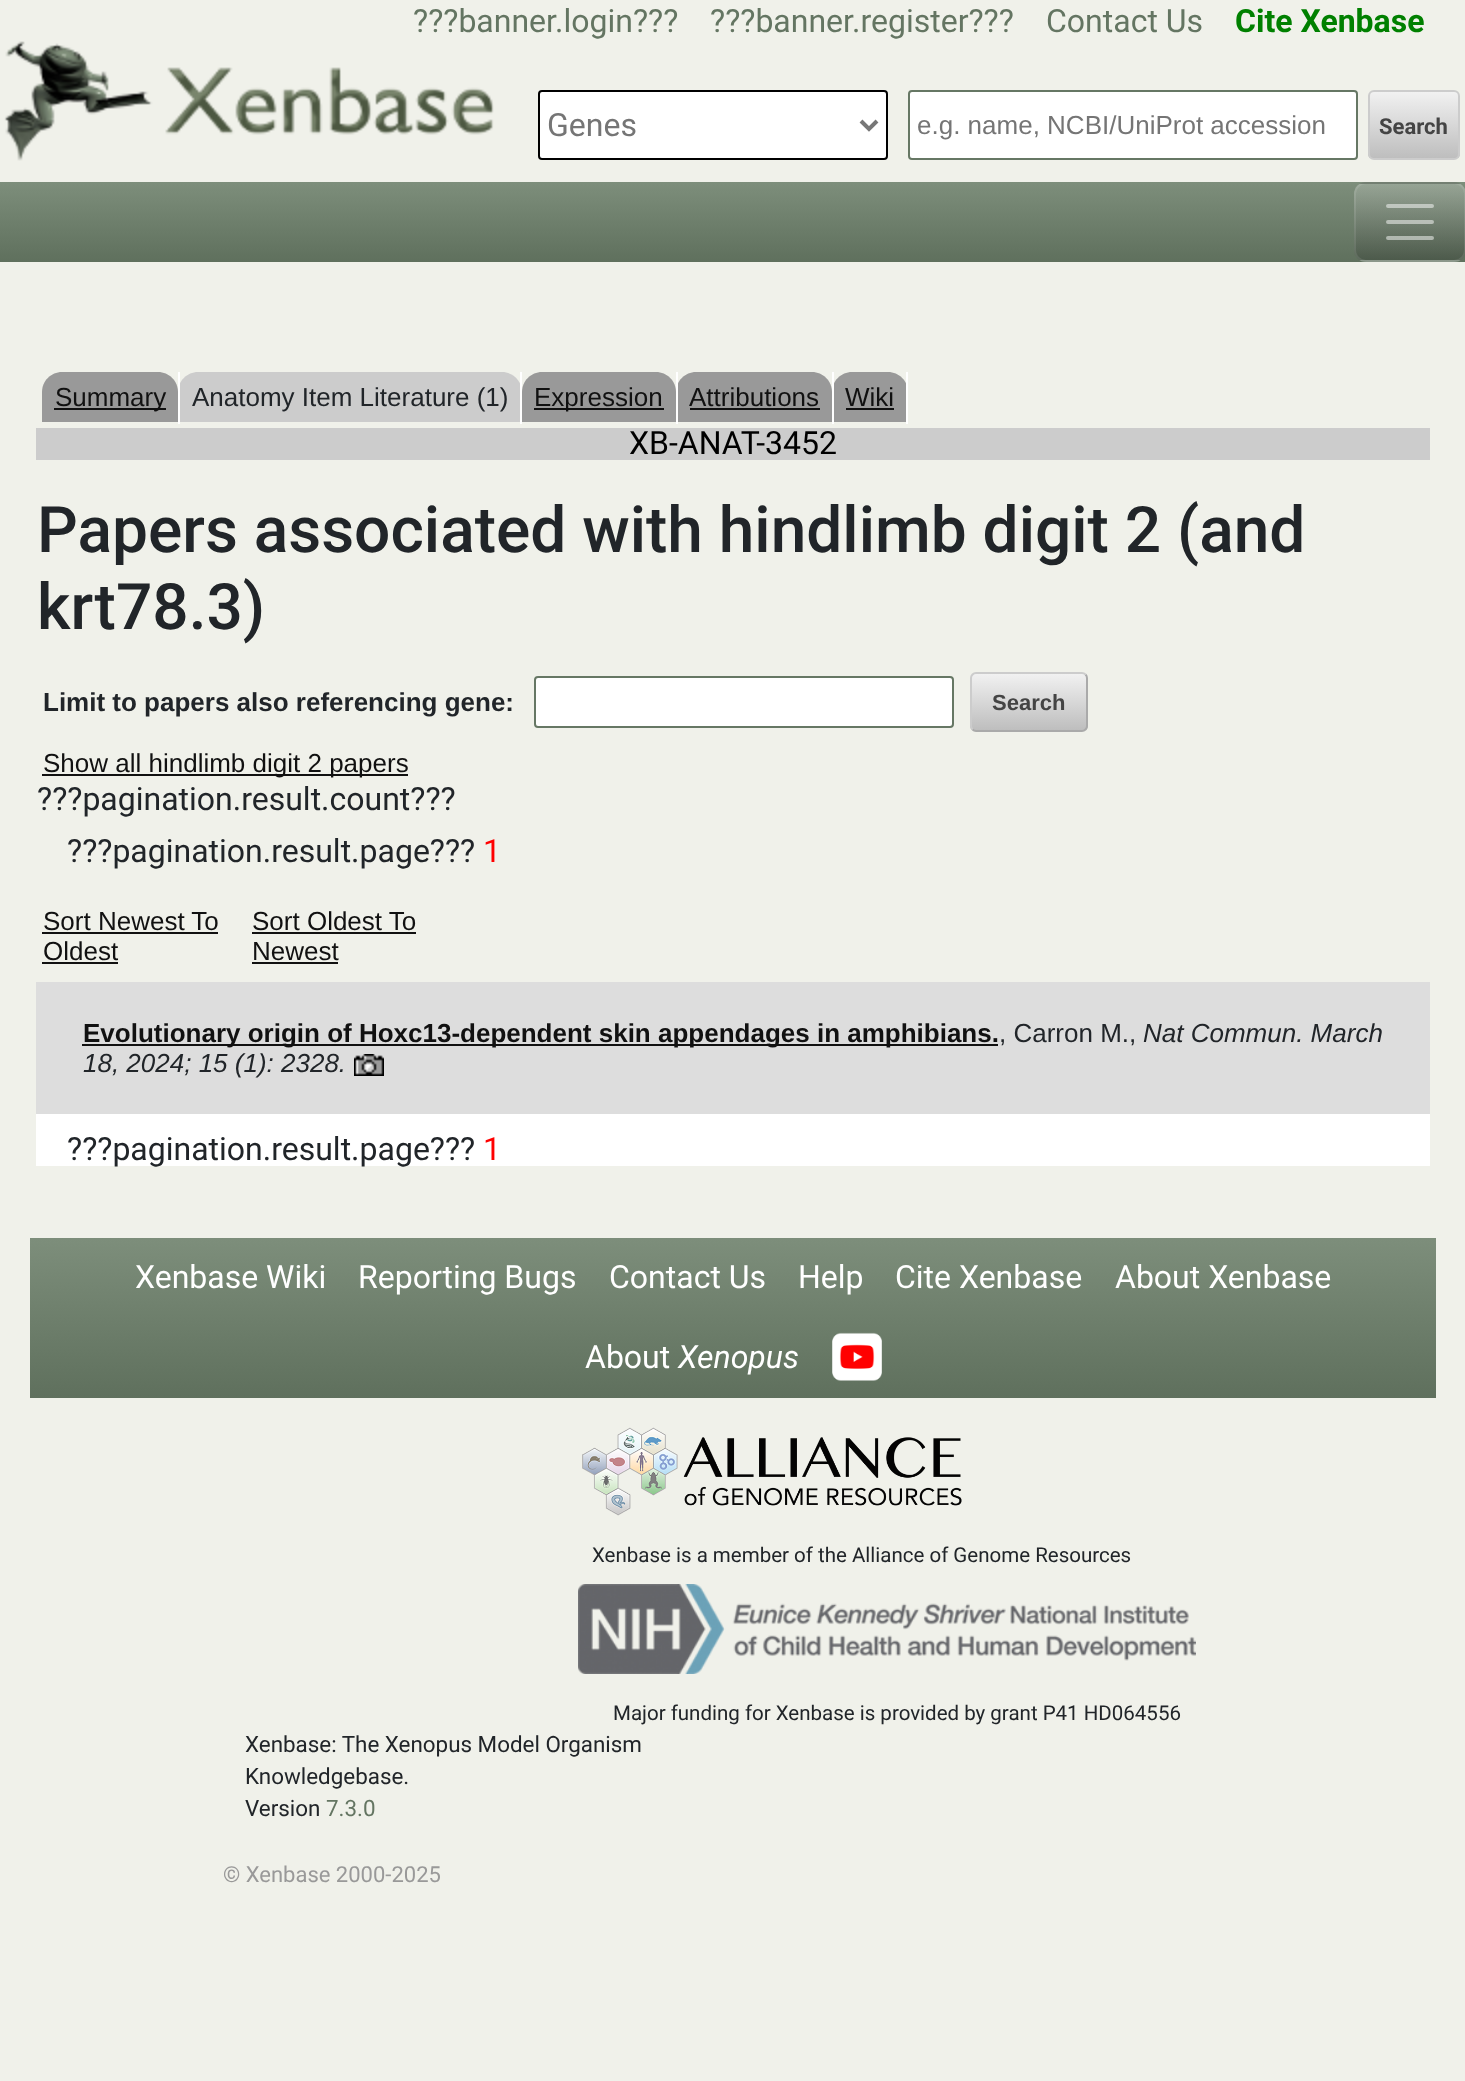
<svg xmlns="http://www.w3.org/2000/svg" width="1465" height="2081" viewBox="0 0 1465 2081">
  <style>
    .t1 { font: 32px Roboto; fill: #647562; }
    .t2 { font: bold 32px Roboto; fill: #008000; }
    .t3 { font: 32px Roboto; fill: #757575; }
    .t4 { font: 26px Liberation Sans; fill: #757575; }
    .t5 { font: bold 22px Roboto; fill: #444; }
    .t6 { font: 26px Liberation Sans; fill: #111; }
    .t7 { font: 26px Liberation Sans; fill: #212529; }
    .t8 { font: 32px Roboto; fill: #000; }
    .t9 { font: 500 64px Roboto; fill: #212529; }
    .t10 { font: bold 26px Liberation Sans; fill: #212529; }
    .t11 { font: bold 22px Liberation Sans; fill: #444; }
    .t12 { font: 32px Roboto; fill: #212529; }
    .t13 { font: 32px Roboto; fill: #f00; }
    .t14 { font: bold 26px Liberation Sans; fill: #111; }
    .t15 { font: italic 26px Liberation Sans; fill: #212529; }
    .t16 { font: 32px Roboto; fill: #fff; }
    .t17 { font: italic 32px Roboto; fill: #fff; }
    .t18 { font: 20.5px Roboto; fill: #212529; }
    .t19 { font: 22.4px Roboto; fill: #212529; }
    .t20 { font: 22.4px Roboto; fill: #647562; }
    .t21 { font: 22px Roboto; fill: #999; }
  </style>
  <defs>
    <clipPath id="clip1"><rect x="1368" y="90" width="92" height="70" rx="6"/></clipPath>
    <linearGradient id="g1" gradientUnits="userSpaceOnUse" x1="1414" y1="92" x2="1414" y2="158"><stop offset="0" stop-color="#f1f1f1"/><stop offset="1" stop-color="#bebebe"/></linearGradient>
    <linearGradient id="g2" gradientUnits="userSpaceOnUse" x1="733" y1="182" x2="733" y2="262"><stop offset="0" stop-color="#7d8e7b"/><stop offset="1" stop-color="#5f705d"/></linearGradient>
    <clipPath id="clip2"><rect x="1354" y="182" width="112" height="80" rx="12"/></clipPath>
    <linearGradient id="g3" gradientUnits="userSpaceOnUse" x1="1410" y1="108" x2="1410" y2="184"><stop offset="0" stop-color="#97a495"/><stop offset="1" stop-color="#647162"/></linearGradient>
    <linearGradient id="g4" gradientUnits="userSpaceOnUse" x1="1410" y1="184" x2="1410" y2="260"><stop offset="0" stop-color="#fff" stop-opacity="0.2"/><stop offset="1" stop-color="#000" stop-opacity="0.2"/></linearGradient>
    <linearGradient id="g5" gradientUnits="userSpaceOnUse" x1="1410" y1="260" x2="1410" y2="336"><stop offset="0" stop-color="#7f8d7e"/><stop offset="1" stop-color="#4c5a4b"/></linearGradient>
    <clipPath id="clip3"><rect x="970" y="672" width="118" height="60" rx="6"/></clipPath>
    <linearGradient id="g6" gradientUnits="userSpaceOnUse" x1="1029" y1="674" x2="1029" y2="730"><stop offset="0" stop-color="#f1f1f1"/><stop offset="1" stop-color="#bebebe"/></linearGradient>
    <linearGradient id="g7" gradientUnits="userSpaceOnUse" x1="733" y1="1238" x2="733" y2="1398"><stop offset="0" stop-color="#7d8e7b"/><stop offset="1" stop-color="#5f705d"/></linearGradient>
  </defs>
  <rect width="100%" height="100%" fill="#f0f1ea"/>
  <text x="413" y="32" class="t1">???banner.login???</text>
  <text x="710" y="32" class="t1">???banner.register???</text>
  <text x="1046" y="32" class="t1">Contact Us</text>
  <text x="1235" y="32" class="t2">Cite Xenbase</text>
  <image x="4" y="41" width="490" height="120" href="images/1.png"/>
  <rect x="539" y="91" width="348" height="68" rx="3" fill="#fff" stroke="#000" stroke-width="2"/>
  <path d="M861 121L869 129L877 121" fill="none" stroke="#777" stroke-width="4"/>
  <text x="547" y="136" class="t3">Genes</text>
  <rect x="909" y="91" width="448" height="68" rx="3" fill="#fff" stroke="#667764" stroke-width="2"/>
  <text x="917" y="134" class="t4">e.g. name, NCBI/UniProt accession</text>
  <g clip-path="url(#clip1)">
    <rect x="1368" y="92" width="92" height="66" fill="url(#g1)"/>
  </g>
  <rect x="1369" y="91" width="90" height="68" rx="5" fill="none" stroke="#ccc" stroke-width="2"/>
  <text x="1379" y="134" class="t5">Search</text>
  <rect x="0" y="182" width="1465" height="80" fill="url(#g2)"/>
  <g clip-path="url(#clip2)">
    <rect x="1354" y="182" width="111" height="2" fill="url(#g3)"/>
    <rect x="1354" y="184" width="111" height="76" fill="url(#g4)"/>
    <rect x="1354" y="260" width="111" height="2" fill="url(#g5)"/>
  </g>
  <rect x="1355" y="183" width="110" height="78" rx="11" fill="none" stroke="#ffffff1a" stroke-width="2"/>
  <path d="M1388 206H1432M1388 222H1432M1388 238H1432" fill="none" stroke="#ffffff80" stroke-width="4" stroke-linecap="round"/>
  <path d="M62 372H158C169 372 178 381 178 392V422H42V392C42 381 51 372 62 372Z" fill="#999"/>
  <path d="M198 372H502C513 372 522 381 522 392V422H178V392C178 381 187 372 198 372Z" fill="#ccc"/>
  <rect x="178" y="372" width="2" height="52" fill="#fff"/>
  <rect x="54" y="408" width="112" height="2" fill="#111"/>
  <text x="55" y="406" class="t6">Summary</text>
  <rect x="520" y="372" width="2" height="52" fill="#fff"/>
  <text x="192" y="406" class="t7">Anatomy Item Literature (1)</text>
  <path d="M542 372H656C667 372 676 381 676 392V422H522V392C522 381 531 372 542 372Z" fill="#999"/>
  <path d="M696 372H812C823 372 832 381 832 392V422H676V392C676 381 685 372 696 372Z" fill="#999"/>
  <rect x="676" y="372" width="2" height="52" fill="#fff"/>
  <rect x="534" y="408" width="130" height="2" fill="#111"/>
  <text x="534" y="406" class="t6">Expression</text>
  <path d="M852 372H888C899 372 908 381 908 392V422H832V392C832 381 841 372 852 372Z" fill="#999"/>
  <rect x="832" y="372" width="2" height="52" fill="#fff"/>
  <text x="689" y="406" class="t6">Attributions</text>
  <rect x="690" y="408" width="130" height="2" fill="#111"/>
  <rect x="906" y="372" width="2" height="52" fill="#fff"/>
  <text x="845" y="406" class="t6">Wiki</text>
  <rect x="846" y="408" width="48" height="2" fill="#111"/>
  <rect x="36" y="428" width="1394" height="32" fill="#ccc"/>
  <text x="629" y="454" class="t8">XB-ANAT-3452</text>
  <text x="37" y="552" class="t9">Papers associated with hindlimb digit 2 (and</text>
  <text x="37" y="629" class="t9">krt78.3)</text>
  <text x="43" y="711" class="t10">Limit to papers also referencing gene:</text>
  <rect x="535" y="677" width="418" height="50" rx="3" fill="#fff" stroke="#667764" stroke-width="2"/>
  <g clip-path="url(#clip3)">
    <rect x="970" y="674" width="118" height="56" fill="url(#g6)"/>
  </g>
  <path d="M1085.5 674.5C1086.5 675.5 1087 676.5 1087 678V726C1087 727.5 1086.5 728.5 1085.5 729.5C1084.5 730.5 1083.5 731 1082 731H976C974.5 731 973.5 730.5 972.5 729.5" fill="none" stroke="#aaa" stroke-width="2"/>
  <path d="M972.5 729.5C971.5 728.5 971 727.5 971 726V678C971 676.5 971.5 675.5 972.5 674.5C973.5 673.5 974.5 673 976 673H1082C1083.5 673 1084.5 673.5 1085.5 674.5" fill="none" stroke="#ccc" stroke-width="2"/>
  <text x="992" y="710" class="t11">Search</text>
  <rect x="42" y="774" width="366" height="2" fill="#111"/>
  <text x="43" y="772" class="t6">Show all hindlimb digit 2 papers</text>
  <text x="37" y="810" class="t12">???pagination.result.count???</text>
  <text x="67" y="862" class="t12">???pagination.result.page???</text>
  <text x="483" y="862" class="t13">1</text>
  <text x="43" y="930" class="t6">Sort Newest To</text>
  <rect x="42" y="932" width="176" height="2" fill="#111"/>
  <text x="43" y="960" class="t6">Oldest</text>
  <rect x="42" y="962" width="76" height="2" fill="#111"/>
  <text x="252" y="930" class="t6">Sort Oldest To</text>
  <rect x="252" y="932" width="164" height="2" fill="#111"/>
  <text x="252" y="960" class="t6">Newest</text>
  <rect x="252" y="962" width="86" height="2" fill="#111"/>
  <rect x="36" y="982" width="1394" height="132" fill="#ddd"/>
  <rect x="82" y="1044" width="916" height="2" fill="#111"/>
  <text x="83" y="1042" class="t14">Evolutionary origin of Hoxc13-dependent skin appendages in amphibians.</text>
  <text x="999" y="1042" class="t7">, Carron M.,</text>
  <text x="1143" y="1042" class="t15">Nat Commun. March</text>
  <text x="83" y="1072" class="t15">18, 2024; 15 (1): 2328.</text>
  <image x="354" y="1054" width="30" height="22" href="images/2.png"/>
  <rect x="36" y="1114" width="1394" height="52" fill="#fff"/>
  <text x="67" y="1160" class="t12">???pagination.result.page???</text>
  <text x="483" y="1160" class="t13">1</text>
  <rect x="30" y="1238" width="1406" height="160" fill="url(#g7)"/>
  <text x="135" y="1288" class="t16">Xenbase Wiki</text>
  <text x="358" y="1288" class="t16">Reporting Bugs</text>
  <text x="609" y="1288" class="t16">Contact Us</text>
  <text x="798" y="1288" class="t16">Help</text>
  <text x="895" y="1288" class="t16">Cite Xenbase</text>
  <text x="1115" y="1288" class="t16">About Xenbase</text>
  <text x="585" y="1368" class="t16">About</text>
  <text x="678" y="1368" class="t17">Xenopus</text>
  <image x="832" y="1332" width="50" height="49" href="images/3.png"/>
  <image x="582" y="1427" width="380" height="89" href="images/4.png"/>
  <text x="592" y="1562" class="t18">Xenbase is a member of the Alliance of Genome Resources</text>
  <image x="578" y="1584" width="618" height="90" href="images/5.png"/>
  <text x="613" y="1720" class="t18">Major funding for Xenbase is provided by grant P41 HD064556</text>
  <text x="245" y="1752" class="t19">Xenbase: The Xenopus Model Organism</text>
  <text x="245" y="1784" class="t19">Knowledgebase.</text>
  <text x="245" y="1816" class="t19">Version</text>
  <text x="326" y="1816" class="t20">7.3.0</text>
  <text x="223" y="1882" class="t21">© Xenbase 2000-2025</text>
</svg>
